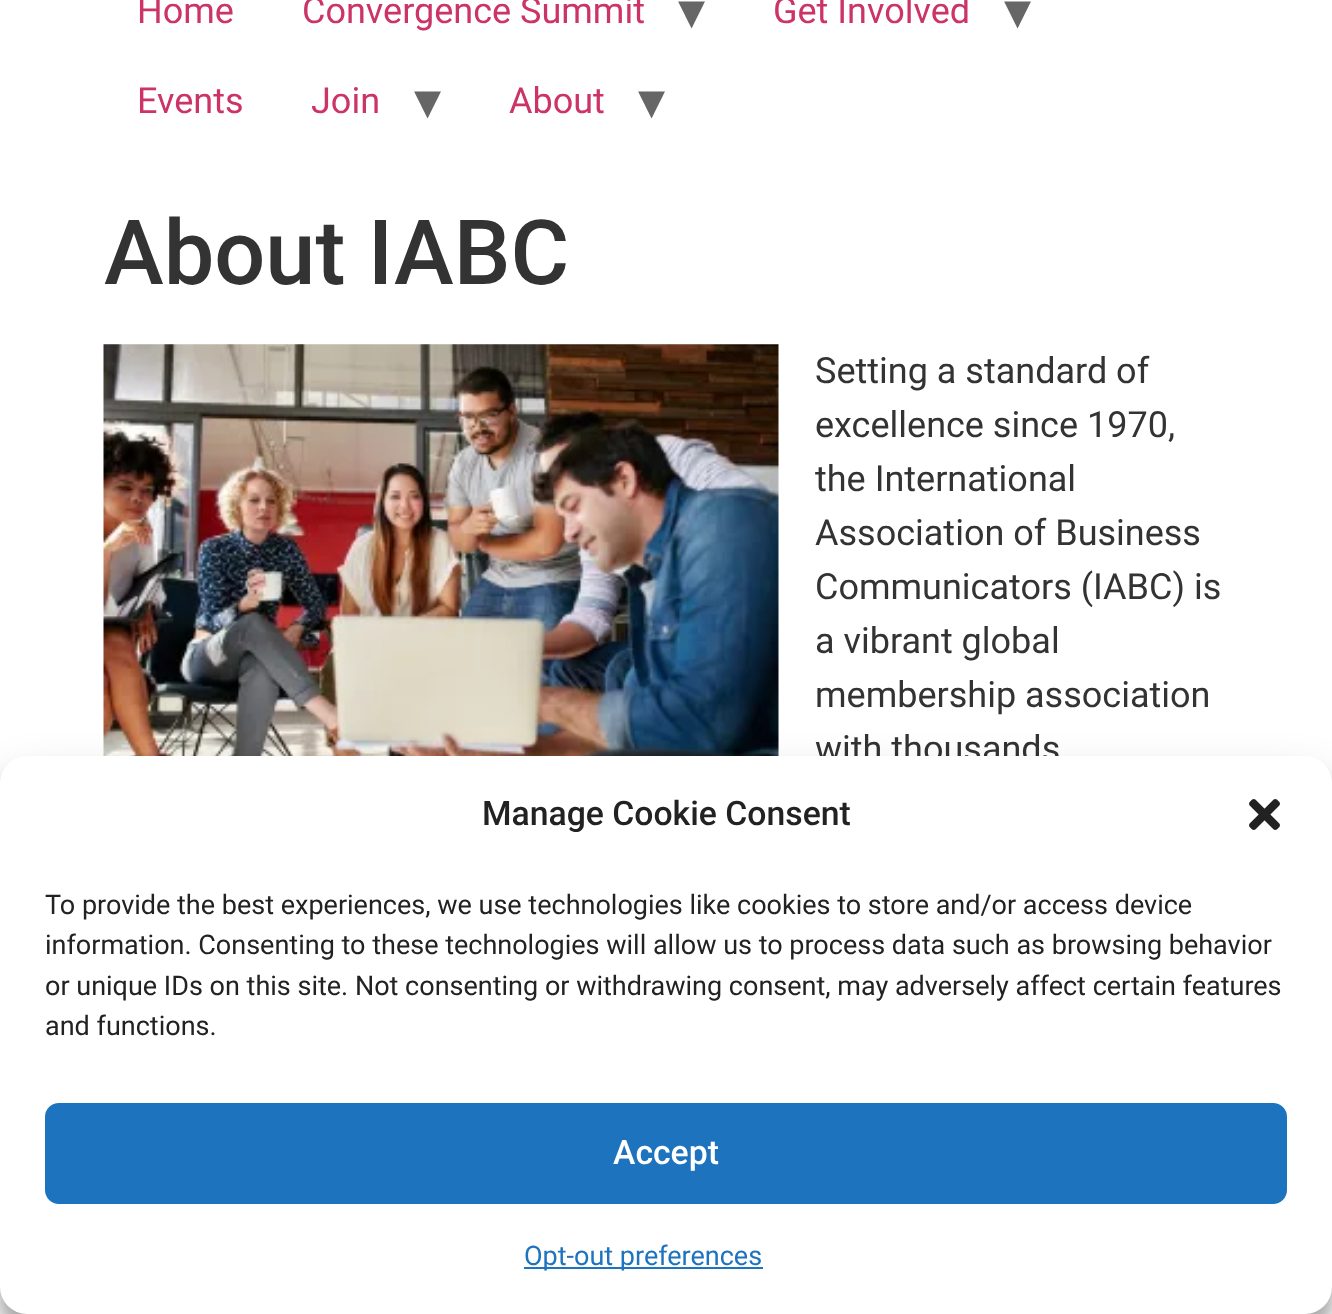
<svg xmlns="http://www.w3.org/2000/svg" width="1332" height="1314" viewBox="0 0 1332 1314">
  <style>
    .t1 { font: 36px Roboto; fill: #c36; }
    .t2 { font: 54px DejaVu Sans; fill: #666; }
    .t3 { font: 500 90px Roboto; fill: #333; }
    .t4 { font: 36px Roboto; fill: #333; }
    .t5 { font: 500 33.75px Roboto; fill: #222; }
    .t6 { font: 27px Roboto; fill: #222; }
    .t7 { font: 500 33.75px Roboto; fill: #fff; }
    .t8 { font: 27px Roboto; fill: #1e73be; }
  </style>
  <rect width="100%" height="100%" fill="#fff"/>
  <text x="137" y="23" class="t1">Home</text>
  <text x="302" y="23" class="t1">Convergence Summit</text>
  <text x="678" y="29" class="t2">▾</text>
  <text x="773" y="23" class="t1">Get Involved</text>
  <text x="1004" y="29" class="t2">▾</text>
  <text x="137" y="113" class="t1">Events</text>
  <text x="311" y="113" class="t1">Join</text>
  <text x="414" y="119" class="t2">▾</text>
  <text x="509" y="113" class="t1">About</text>
  <text x="638" y="119" class="t2">▾</text>
  <text x="104" y="284" class="t3">About IABC</text>
  <image x="103" y="344" width="676" height="412" href="images/1.png"/>
  <text x="815" y="383" class="t4">Setting a standard of</text>
  <text x="815" y="437" class="t4">excellence since 1970,</text>
  <text x="815" y="491" class="t4">the International</text>
  <text x="815" y="545" class="t4">Association of Business</text>
  <text x="815" y="599" class="t4">Communicators (IABC) is</text>
  <text x="815" y="653" class="t4">a vibrant global</text>
  <text x="815" y="707" class="t4">membership association</text>
  <text x="815" y="761" class="t4">with thousands</text>
  <rect x="0" y="770" width="1332" height="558" rx="27" fill="#0000003b" filter="blur(7px)"/>
  <rect x="0" y="779" width="1332" height="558" rx="27" fill="#00000030" filter="blur(22.5px)"/>
  <rect x="0" y="756" width="1332" height="558" rx="27" fill="#fff"/>
  <text x="482" y="825" class="t5">Manage Cookie Consent</text>
  <image x="1249" y="799" width="31" height="31" href="images/2.png"/>
  <text x="45" y="914" class="t6">To provide the best experiences, we use technologies like cookies to store and/or access device</text>
  <text x="45" y="954" class="t6">information. Consenting to these technologies will allow us to process data such as browsing behavior</text>
  <text x="45" y="995" class="t6">or unique IDs on this site. Not consenting or withdrawing consent, may adversely affect certain features</text>
  <text x="45" y="1035" class="t6">and functions.</text>
  <rect x="46" y="1104" width="1240" height="99" rx="13" fill="#1e73be" stroke="#1e73be" stroke-width="2"/>
  <text x="613" y="1164" class="t7">Accept</text>
  <rect x="524" y="1267" width="239" height="2" fill="#1e73be"/>
  <text x="524" y="1265" class="t8">Opt-out preferences</text>
</svg>
